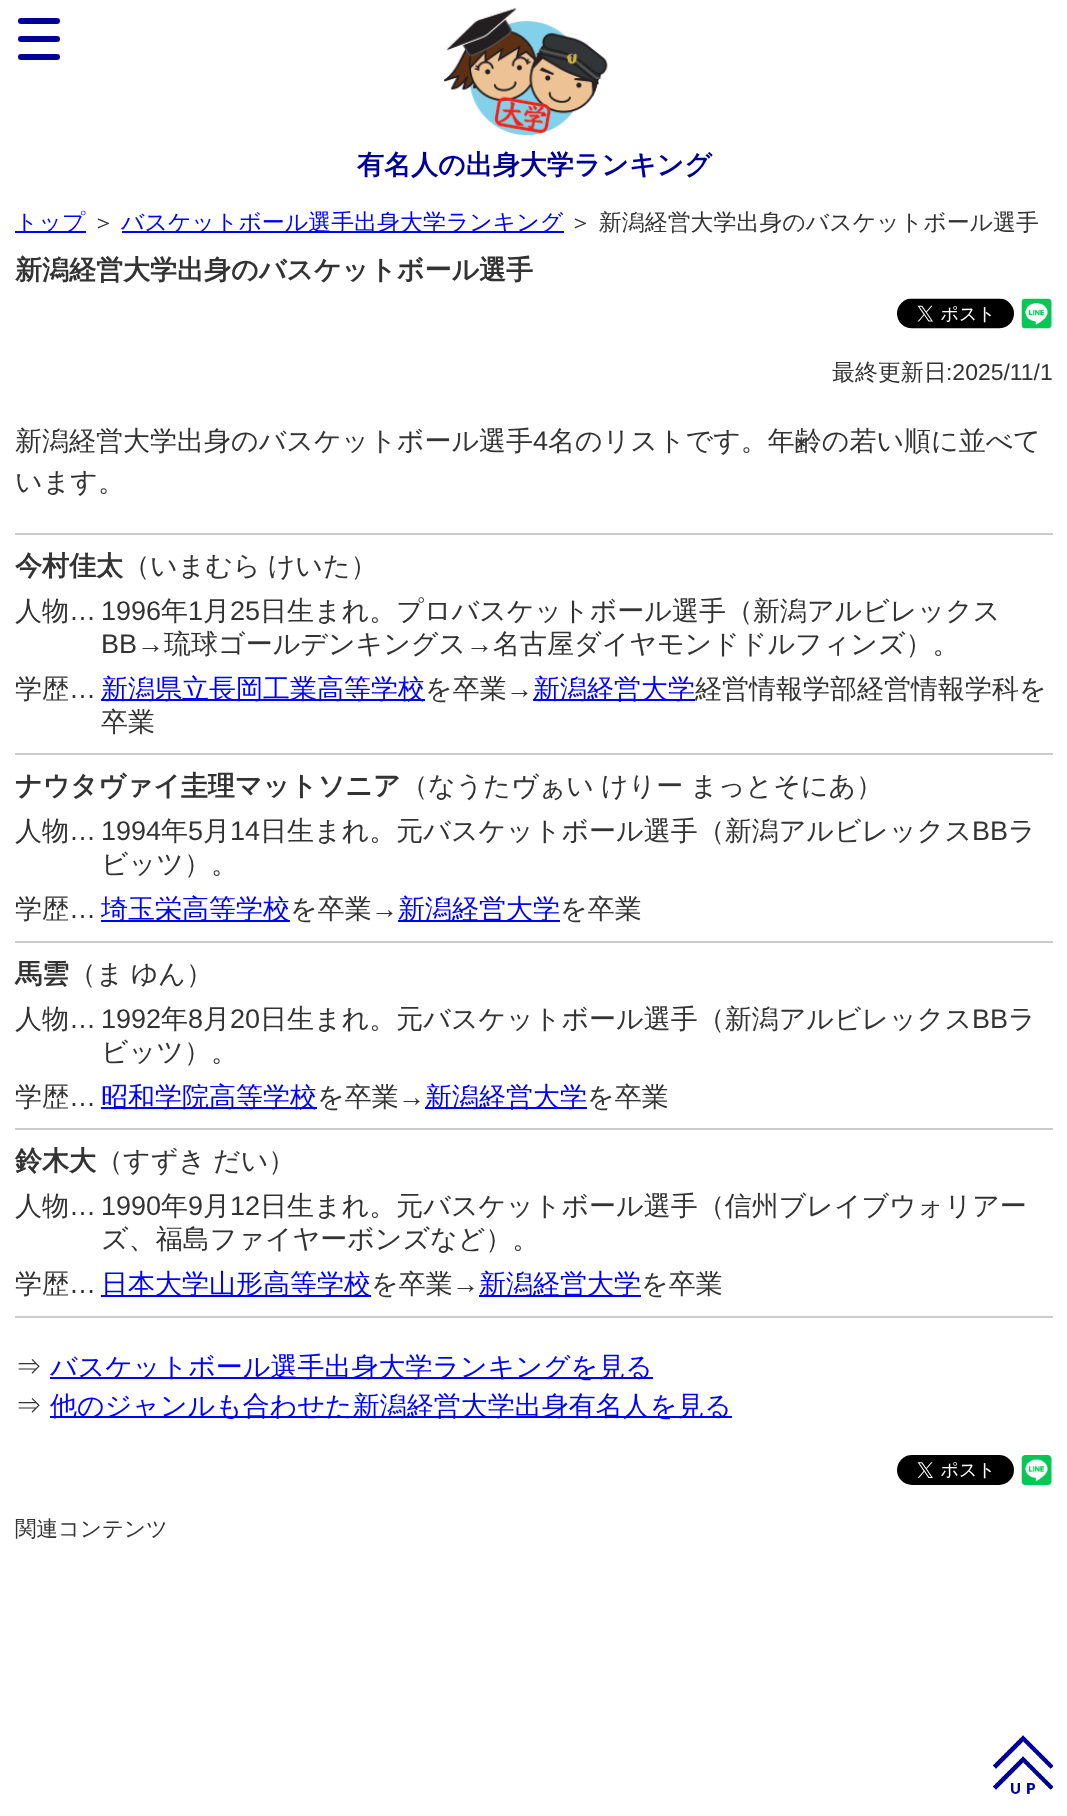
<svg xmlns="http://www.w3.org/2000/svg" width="1067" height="1816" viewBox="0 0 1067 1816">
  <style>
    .t1 { font: bold 27px WenQuanYi Zen Hei; fill: #009; }
    .t2 { font: 500 22.95px WenQuanYi Zen Hei; fill: #00f; }
    .t3 { font: 500 22.95px WenQuanYi Zen Hei; fill: #333; }
    .t4 { font: bold 27px WenQuanYi Zen Hei; fill: #333; }
    .t5 { font: 22.95px Liberation Sans; fill: #333; }
    .t6 { font: 500 27px WenQuanYi Zen Hei; fill: #333; }
    .t7 { font: 27px Liberation Sans; fill: #333; }
    .t8 { font: 500 27px WenQuanYi Zen Hei; fill: #00f; }
    .t9 { font: 500 21.5px WenQuanYi Zen Hei; fill: #333; }
  </style>
  <rect width="100%" height="100%" fill="#fff"/>
  <rect x="18" y="18" width="42" height="6" rx="3" fill="#009"/>
  <rect x="18" y="36" width="42" height="6" rx="3" fill="#009"/>
  <rect x="18" y="54" width="42" height="6" rx="3" fill="#009"/>
  <image x="993" y="1735" width="60" height="59" href="images/1.png"/>
  <image x="444" y="7" width="164" height="128" href="images/2.png"/>
  <text x="357" y="174" class="t1">有名人の出身大学ランキング</text>
  <rect x="15" y="231" width="71" height="2" fill="#00f"/>
  <text x="15" y="230" class="t2">トップ</text>
  <text x="92" y="230" class="t3">＞</text>
  <rect x="122" y="231" width="442" height="2" fill="#00f"/>
  <text x="121" y="230" class="t2">バスケットボール選手出身大学ランキング</text>
  <text x="569" y="230" class="t3">＞ 新潟経営大学出身のバスケットボール選手</text>
  <text x="15" y="279" class="t4">新潟経営大学出身のバスケットボール選手</text>
  <image x="897" y="298" width="117" height="31" href="images/3.png"/>
  <image x="1021" y="298" width="31" height="31" href="images/4.png"/>
  <text x="832" y="380" class="t3">最終更新日</text>
  <text x="946" y="380" class="t5">:2025/11/1</text>
  <text x="15" y="450" class="t6">新潟経営大学出身のバスケットボール選手</text>
  <text x="533" y="450" class="t7">4</text>
  <text x="548" y="450" class="t6">名のリストです。年齢の若い順に並べて</text>
  <text x="15" y="491" class="t6">います。</text>
  <rect x="15" y="533" width="1038" height="2" fill="#ccc"/>
  <rect x="15" y="753" width="1038" height="2" fill="#ccc"/>
  <text x="15" y="575" class="t4">今村佳太</text>
  <text x="123" y="575" word-spacing="-1" class="t6">（いまむら けいた）</text>
  <text x="15" y="620" class="t6">人物</text>
  <text x="69" y="620" class="t7">…</text>
  <text x="101" y="620" class="t7">1996</text>
  <text x="161" y="620" class="t6">年</text>
  <text x="188" y="620" class="t7">1</text>
  <text x="203" y="620" class="t6">月</text>
  <text x="230" y="620" class="t7">25</text>
  <text x="260" y="620" class="t6">日生まれ。プロバスケットボール選手（新潟アルビレックス</text>
  <text x="101" y="653" class="t7">BB→</text>
  <text x="164" y="653" class="t6">琉球ゴールデンキングス</text>
  <text x="466" y="653" class="t7">→</text>
  <text x="493" y="653" class="t6">名古屋ダイヤモンドドルフィンズ）。</text>
  <text x="15" y="698" class="t6">学歴</text>
  <text x="69" y="698" class="t7">…</text>
  <rect x="101" y="699" width="324" height="2" fill="#00f"/>
  <text x="101" y="698" class="t8">新潟県立長岡工業高等学校</text>
  <text x="425" y="698" class="t6">を卒業</text>
  <text x="506" y="698" class="t7">→</text>
  <rect x="533" y="699" width="162" height="2" fill="#00f"/>
  <text x="533" y="698" class="t8">新潟経営大学</text>
  <text x="695" y="698" class="t6">経営情報学部経営情報学科を</text>
  <text x="101" y="731" class="t6">卒業</text>
  <rect x="15" y="941" width="1038" height="2" fill="#ccc"/>
  <text x="15" y="795" class="t4">ナウタヴァイ圭理マットソニア</text>
  <text x="401" y="795" word-spacing="-1" class="t6">（なうたヴぁい けりー まっとそにあ）</text>
  <text x="15" y="840" class="t6">人物</text>
  <text x="69" y="840" class="t7">…</text>
  <text x="101" y="840" class="t7">1994</text>
  <text x="161" y="840" class="t6">年</text>
  <text x="188" y="840" class="t7">5</text>
  <text x="203" y="840" class="t6">月</text>
  <text x="230" y="840" class="t7">14</text>
  <text x="260" y="840" class="t6">日生まれ。元バスケットボール選手（新潟アルビレックス</text>
  <text x="972" y="840" class="t7">BB</text>
  <text x="1008" y="840" class="t6">ラ</text>
  <text x="101" y="873" class="t6">ビッツ）。</text>
  <text x="15" y="918" class="t6">学歴</text>
  <text x="69" y="918" class="t7">…</text>
  <rect x="101" y="920" width="189" height="2" fill="#00f"/>
  <text x="101" y="918" class="t8">埼玉栄高等学校</text>
  <text x="290" y="918" class="t6">を卒業</text>
  <text x="371" y="918" class="t7">→</text>
  <rect x="398" y="920" width="162" height="2" fill="#00f"/>
  <text x="398" y="918" class="t8">新潟経営大学</text>
  <text x="560" y="918" class="t6">を卒業</text>
  <rect x="15" y="1128" width="1038" height="2" fill="#ccc"/>
  <text x="15" y="983" class="t4">馬雲</text>
  <text x="69" y="983" word-spacing="-1" class="t6">（ま ゆん）</text>
  <text x="15" y="1028" class="t6">人物</text>
  <text x="69" y="1028" class="t7">…</text>
  <text x="101" y="1028" class="t7">1992</text>
  <text x="161" y="1028" class="t6">年</text>
  <text x="188" y="1028" class="t7">8</text>
  <text x="203" y="1028" class="t6">月</text>
  <text x="230" y="1028" class="t7">20</text>
  <text x="260" y="1028" class="t6">日生まれ。元バスケットボール選手（新潟アルビレックス</text>
  <text x="972" y="1028" class="t7">BB</text>
  <text x="1008" y="1028" class="t6">ラ</text>
  <text x="101" y="1061" class="t6">ビッツ）。</text>
  <text x="15" y="1106" class="t6">学歴</text>
  <text x="69" y="1106" class="t7">…</text>
  <rect x="101" y="1107" width="216" height="2" fill="#00f"/>
  <text x="101" y="1106" class="t8">昭和学院高等学校</text>
  <text x="317" y="1106" class="t6">を卒業</text>
  <text x="398" y="1106" class="t7">→</text>
  <rect x="425" y="1107" width="162" height="2" fill="#00f"/>
  <text x="425" y="1106" class="t8">新潟経営大学</text>
  <text x="587" y="1106" class="t6">を卒業</text>
  <rect x="15" y="1316" width="1038" height="2" fill="#ccc"/>
  <text x="15" y="1170" class="t4">鈴木大</text>
  <text x="96" y="1170" word-spacing="-1" class="t6">（すずき だい）</text>
  <text x="15" y="1215" class="t6">人物</text>
  <text x="69" y="1215" class="t7">…</text>
  <text x="101" y="1215" class="t7">1990</text>
  <text x="161" y="1215" class="t6">年</text>
  <text x="188" y="1215" class="t7">9</text>
  <text x="203" y="1215" class="t6">月</text>
  <text x="230" y="1215" class="t7">12</text>
  <text x="260" y="1215" class="t6">日生まれ。元バスケットボール選手（信州ブレイブウォリアー</text>
  <text x="101" y="1248" class="t6">ズ、福島ファイヤーボンズなど）。</text>
  <text x="15" y="1293" class="t6">学歴</text>
  <text x="69" y="1293" class="t7">…</text>
  <rect x="101" y="1295" width="270" height="2" fill="#00f"/>
  <text x="101" y="1293" class="t8">日本大学山形高等学校</text>
  <text x="371" y="1293" class="t6">を卒業</text>
  <text x="452" y="1293" class="t7">→</text>
  <rect x="479" y="1295" width="162" height="2" fill="#00f"/>
  <text x="479" y="1293" class="t8">新潟経営大学</text>
  <text x="641" y="1293" class="t6">を卒業</text>
  <text x="15" y="1376" class="t6">⇒</text>
  <rect x="50" y="1377" width="603" height="2" fill="#00f"/>
  <text x="50" y="1376" class="t8">バスケットボール選手出身大学ランキングを見る</text>
  <text x="15" y="1415" class="t6">⇒</text>
  <rect x="50" y="1416" width="682" height="2" fill="#00f"/>
  <text x="50" y="1415" class="t8">他のジャンルも合わせた新潟経営大学出身有名人を見る</text>
  <image x="897" y="1455" width="117" height="30" href="images/5.png"/>
  <image x="1021" y="1455" width="31" height="30" href="images/6.png"/>
  <text x="15" y="1536" class="t9">関連コンテンツ</text>
</svg>
